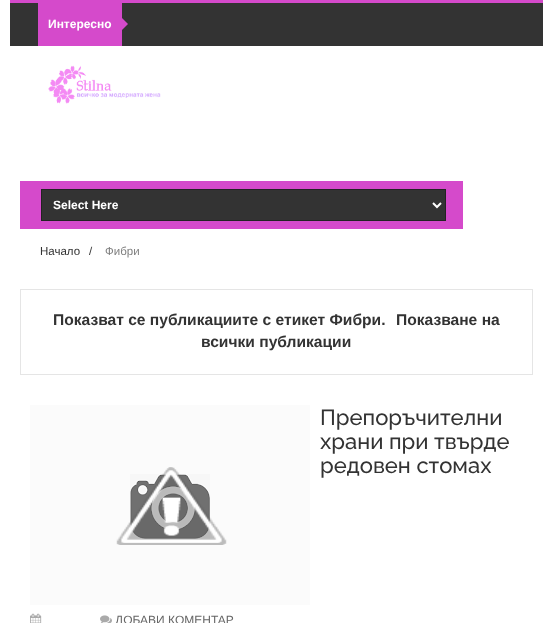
<svg xmlns="http://www.w3.org/2000/svg" width="553" height="623" viewBox="0 0 553 623">
  <style>
    .t1 { font: bold 12px Liberation Sans; fill: #fff; }
    .t2 { font: 11.5px Liberation Sans; fill: #333; }
    .t3 { font: 11.5px Liberation Sans; fill: #808080; }
    .t4 { font: bold 15.6px Liberation Sans; fill: #333; }
    .t5 { font: 500 22px Raleway; fill: #333; }
    .t6 { font: 12px Liberation Sans; fill: #666; }
  </style>
  <rect width="100%" height="100%" fill="#fff"/>
  <rect x="10" y="3" width="533" height="43" fill="#333"/>
  <rect x="10" y="0" width="533" height="3" fill="#d54acb"/>
  <rect x="38" y="3" width="84" height="43" fill="#d54acb"/>
  <text x="48" y="28" class="t1">Интересно</text>
  <path d="M122 30V18L128 24Z" fill="#d54acb"/>
  <image x="48" y="65" width="113" height="39" href="images/1.png"/>
  <rect x="20" y="181" width="443" height="48" fill="#d54acb"/>
  <rect x="41.5" y="189.5" width="404" height="31" fill="#333" stroke="#232323"/>
  <path d="M433 203L437 207L441 203" fill="none" stroke="#fff" stroke-width="2"/>
  <text x="53" y="209" class="t1">Select Here</text>
  <text x="40" y="255" class="t2">Начало</text>
  <text x="89" y="255" class="t2">/</text>
  <text x="105" y="255" class="t3">Фибри</text>
  <rect x="20.5" y="289.5" width="512" height="85" fill="none" stroke="#e5e5e5"/>
  <text x="53" y="325" class="t4">Показват се публикациите с етикет Фибри.</text>
  <text x="396" y="325" class="t4">Показване на</text>
  <text x="201" y="347" class="t4">всички публикации</text>
  <rect x="30" y="405" width="280" height="200" fill="#fbfbfb"/>
  <image x="130" y="474" width="80" height="65" href="images/2.png"/>
  <image x="116" y="467" width="111" height="78" href="images/3.png"/>
  <text x="320" y="425" class="t5">Препоръчителни</text>
  <text x="320" y="449" class="t5">храни при твърде</text>
  <text x="320" y="473" class="t5">редовен стомах</text>
  <image x="30" y="613" width="12" height="10" href="images/4.png"/>
  <image x="100" y="615" width="12" height="8" href="images/5.png"/>
  <text x="115" y="624" class="t6">ДОБАВИ КОМЕНТАР</text>
</svg>
